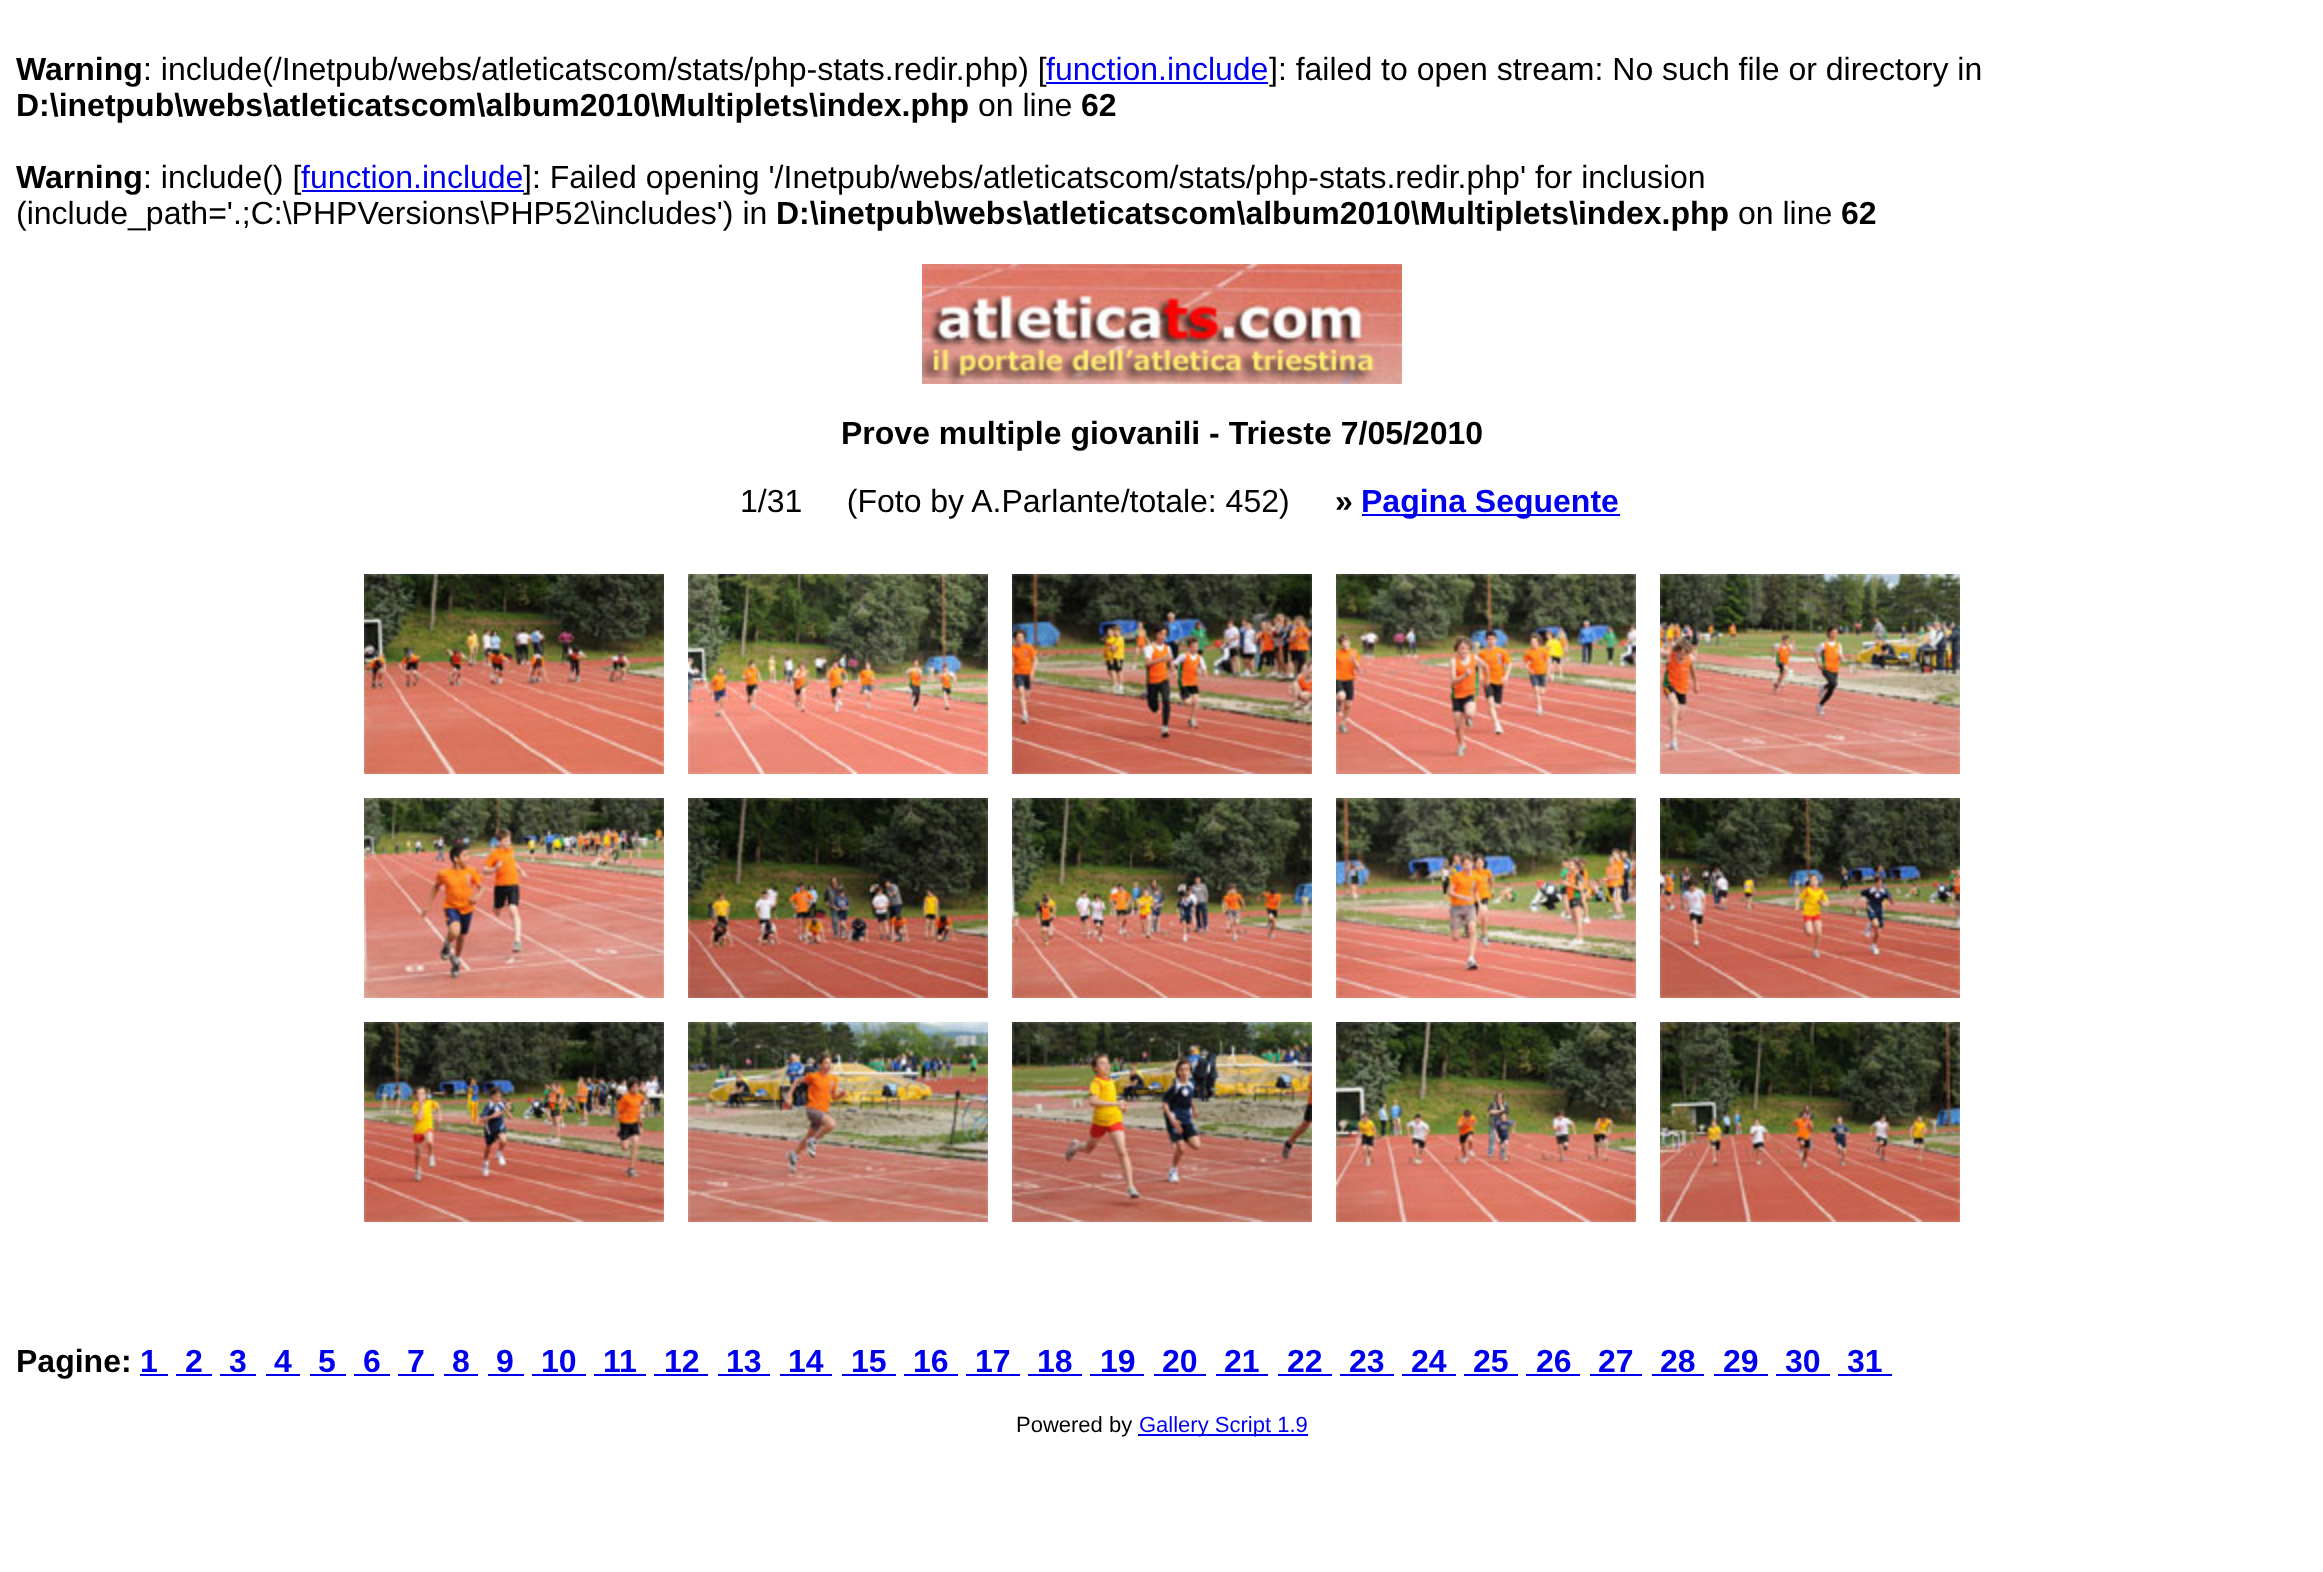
<svg xmlns="http://www.w3.org/2000/svg" width="2323" height="1572" viewBox="0 0 2323 1572">
  <style>
    .t1 { font: bold 32px Liberation Sans; fill: #000; }
    .t2 { font: 32px Liberation Sans; fill: #000; }
    .t3 { font: 32px Liberation Sans; fill: #00e; }
    .t4 { font: bold 32px Liberation Sans; fill: #00e; }
    .t5 { font: 22px Liberation Sans; fill: #000; }
    .t6 { font: 22px Liberation Sans; fill: #00e; }
  </style>
  <rect width="100%" height="100%" fill="#fff"/>
  <text x="16" y="80" class="t1">Warning</text>
  <text x="143" y="80" class="t2">: include(/Inetpub/webs/atleticatscom/stats/php-stats.redir.php) [</text>
  <text x="1046" y="80" class="t3">function.include</text>
  <rect x="1046" y="82" width="222" height="2" fill="#00e"/>
  <text x="1269" y="80" class="t2">]: failed to open stream: No such file or directory in</text>
  <text x="16" y="116" class="t1">D:\inetpub\webs\atleticatscom\album2010\Multiplets\index.php</text>
  <text x="978" y="116" class="t2">on line</text>
  <text x="1081" y="116" class="t1">62</text>
  <text x="16" y="188" class="t1">Warning</text>
  <text x="143" y="188" class="t2">: include() [</text>
  <text x="301" y="188" class="t3">function.include</text>
  <rect x="302" y="190" width="222" height="2" fill="#00e"/>
  <text x="523" y="188" class="t2">]: Failed opening '/Inetpub/webs/atleticatscom/stats/php-stats.redir.php' for inclusion</text>
  <text x="16" y="224" class="t2">(include_path='.;C:\PHPVersions\PHP52\includes') in</text>
  <text x="776" y="224" class="t1">D:\inetpub\webs\atleticatscom\album2010\Multiplets\index.php</text>
  <text x="1738" y="224" class="t2">on line</text>
  <text x="1841" y="224" class="t1">62</text>
  <image x="922" y="264" width="480" height="120" href="images/1.png"/>
  <text x="841" y="444" class="t1">Prove multiple giovanili - Trieste 7/05/2010</text>
  <text x="740" y="512" class="t2" xml:space="preserve">1/31     (Foto by A.Parlante/totale: 452)</text>
  <text x="1335" y="512" class="t1">»</text>
  <rect x="1362" y="514" width="258" height="2" fill="#00e"/>
  <text x="1361" y="512" class="t4">Pagina Seguente</text>
  <image x="364" y="574" width="300" height="200" href="images/2.png"/>
  <image x="688" y="574" width="300" height="200" href="images/3.png"/>
  <image x="1012" y="574" width="300" height="200" href="images/4.png"/>
  <image x="1336" y="574" width="300" height="200" href="images/5.png"/>
  <image x="1660" y="574" width="300" height="200" href="images/6.png"/>
  <image x="364" y="798" width="300" height="200" href="images/7.png"/>
  <image x="688" y="798" width="300" height="200" href="images/8.png"/>
  <image x="1012" y="798" width="300" height="200" href="images/9.png"/>
  <image x="1336" y="798" width="300" height="200" href="images/10.png"/>
  <image x="1660" y="798" width="300" height="200" href="images/11.png"/>
  <image x="364" y="1022" width="300" height="200" href="images/12.png"/>
  <image x="688" y="1022" width="300" height="200" href="images/13.png"/>
  <image x="1012" y="1022" width="300" height="200" href="images/14.png"/>
  <image x="1336" y="1022" width="300" height="200" href="images/15.png"/>
  <image x="1660" y="1022" width="300" height="200" href="images/16.png"/>
  <text x="16" y="1372" class="t1">Pagine:</text>
  <text x="140" y="1372" class="t4">1</text>
  <rect x="140" y="1374" width="28" height="2" fill="#00e"/>
  <text x="185" y="1372" class="t4">2</text>
  <rect x="176" y="1374" width="36" height="2" fill="#00e"/>
  <text x="229" y="1372" class="t4">3</text>
  <rect x="220" y="1374" width="36" height="2" fill="#00e"/>
  <text x="274" y="1372" class="t4">4</text>
  <rect x="266" y="1374" width="34" height="2" fill="#00e"/>
  <text x="318" y="1372" class="t4">5</text>
  <rect x="310" y="1374" width="36" height="2" fill="#00e"/>
  <text x="363" y="1372" class="t4">6</text>
  <rect x="354" y="1374" width="36" height="2" fill="#00e"/>
  <text x="407" y="1372" class="t4">7</text>
  <rect x="398" y="1374" width="36" height="2" fill="#00e"/>
  <text x="452" y="1372" class="t4">8</text>
  <rect x="444" y="1374" width="34" height="2" fill="#00e"/>
  <text x="496" y="1372" class="t4">9</text>
  <rect x="488" y="1374" width="36" height="2" fill="#00e"/>
  <text x="541" y="1372" class="t4">10</text>
  <rect x="532" y="1374" width="54" height="2" fill="#00e"/>
  <text x="603" y="1372" class="t4">11</text>
  <rect x="594" y="1374" width="52" height="2" fill="#00e"/>
  <text x="664" y="1372" class="t4">12</text>
  <rect x="654" y="1374" width="54" height="2" fill="#00e"/>
  <text x="726" y="1372" class="t4">13</text>
  <rect x="718" y="1374" width="52" height="2" fill="#00e"/>
  <text x="788" y="1372" class="t4">14</text>
  <rect x="780" y="1374" width="52" height="2" fill="#00e"/>
  <text x="851" y="1372" class="t4">15</text>
  <rect x="842" y="1374" width="54" height="2" fill="#00e"/>
  <text x="913" y="1372" class="t4">16</text>
  <rect x="904" y="1374" width="54" height="2" fill="#00e"/>
  <text x="975" y="1372" class="t4">17</text>
  <rect x="966" y="1374" width="54" height="2" fill="#00e"/>
  <text x="1037" y="1372" class="t4">18</text>
  <rect x="1028" y="1374" width="54" height="2" fill="#00e"/>
  <text x="1100" y="1372" class="t4">19</text>
  <rect x="1090" y="1374" width="54" height="2" fill="#00e"/>
  <text x="1162" y="1372" class="t4">20</text>
  <rect x="1154" y="1374" width="52" height="2" fill="#00e"/>
  <text x="1224" y="1372" class="t4">21</text>
  <rect x="1216" y="1374" width="52" height="2" fill="#00e"/>
  <text x="1287" y="1372" class="t4">22</text>
  <rect x="1278" y="1374" width="54" height="2" fill="#00e"/>
  <text x="1349" y="1372" class="t4">23</text>
  <rect x="1340" y="1374" width="54" height="2" fill="#00e"/>
  <text x="1411" y="1372" class="t4">24</text>
  <rect x="1402" y="1374" width="54" height="2" fill="#00e"/>
  <text x="1473" y="1372" class="t4">25</text>
  <rect x="1464" y="1374" width="54" height="2" fill="#00e"/>
  <text x="1536" y="1372" class="t4">26</text>
  <rect x="1526" y="1374" width="54" height="2" fill="#00e"/>
  <text x="1598" y="1372" class="t4">27</text>
  <rect x="1590" y="1374" width="52" height="2" fill="#00e"/>
  <text x="1660" y="1372" class="t4">28</text>
  <rect x="1652" y="1374" width="52" height="2" fill="#00e"/>
  <text x="1723" y="1372" class="t4">29</text>
  <rect x="1714" y="1374" width="54" height="2" fill="#00e"/>
  <text x="1785" y="1372" class="t4">30</text>
  <rect x="1776" y="1374" width="54" height="2" fill="#00e"/>
  <text x="1847" y="1372" class="t4">31</text>
  <rect x="1838" y="1374" width="54" height="2" fill="#00e"/>
  <text x="1016" y="1432" class="t5">Powered by</text>
  <rect x="1138" y="1434" width="170" height="2" fill="#00e"/>
  <text x="1139" y="1432" class="t6">Gallery Script 1.9</text>
</svg>
